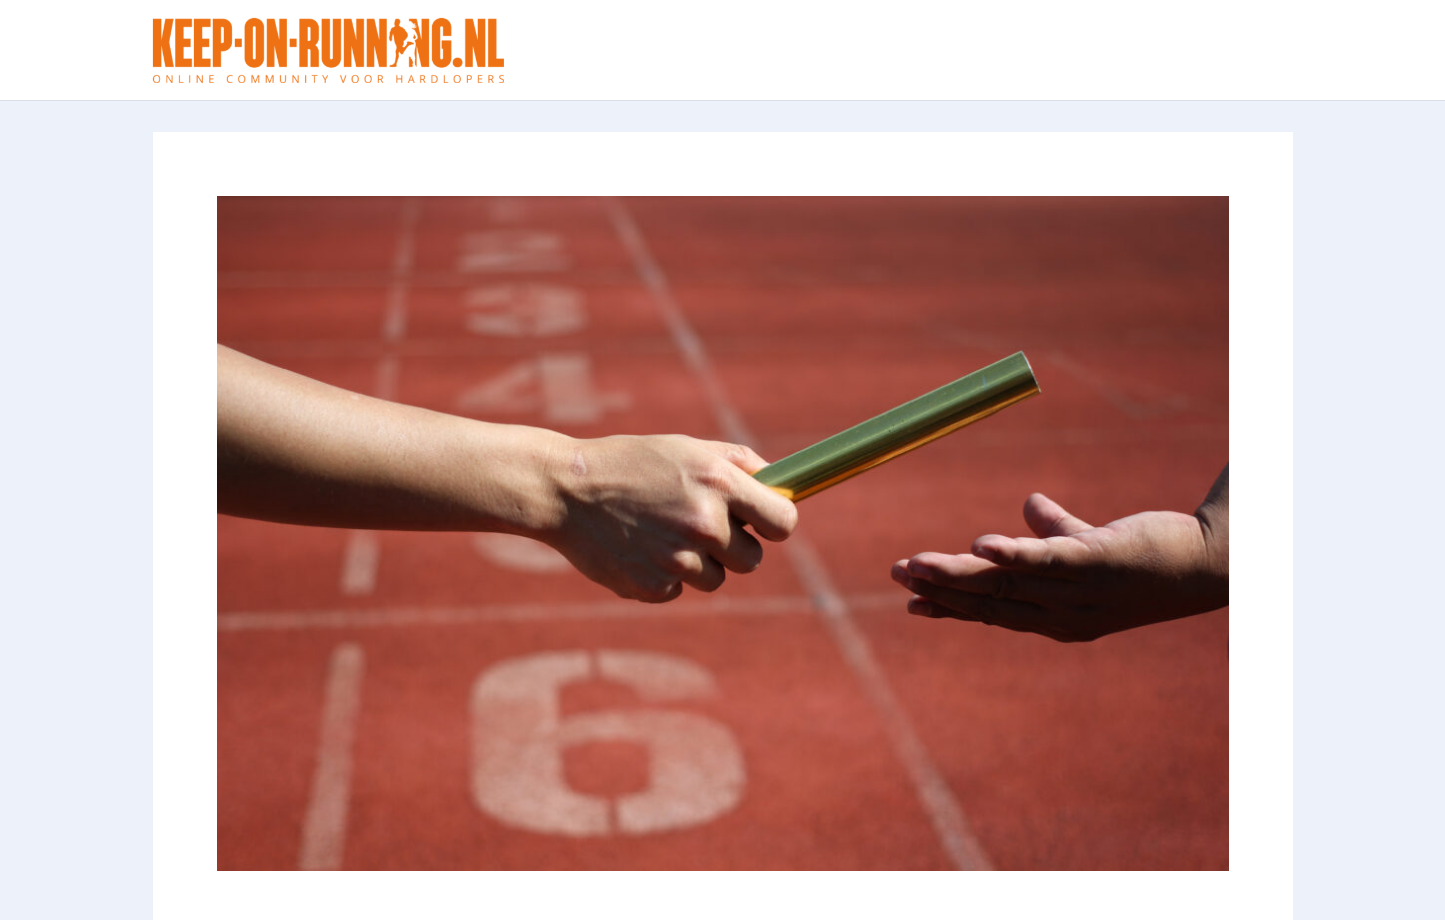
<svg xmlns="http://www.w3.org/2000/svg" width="1445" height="920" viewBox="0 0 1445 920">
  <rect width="100%" height="100%" fill="#edf1fa"/>
  <rect x="0" y="100" width="1445" height="1" fill="#dadee6"/>
  <rect x="0" y="0" width="1445" height="100" fill="#fff"/>
  <image x="152" y="17" width="352" height="66" href="images/1.png"/>
  <rect x="153" y="132" width="1140" height="788" fill="#fff"/>
  <image x="217" y="196" width="1012" height="675" href="images/2.png"/>
</svg>
